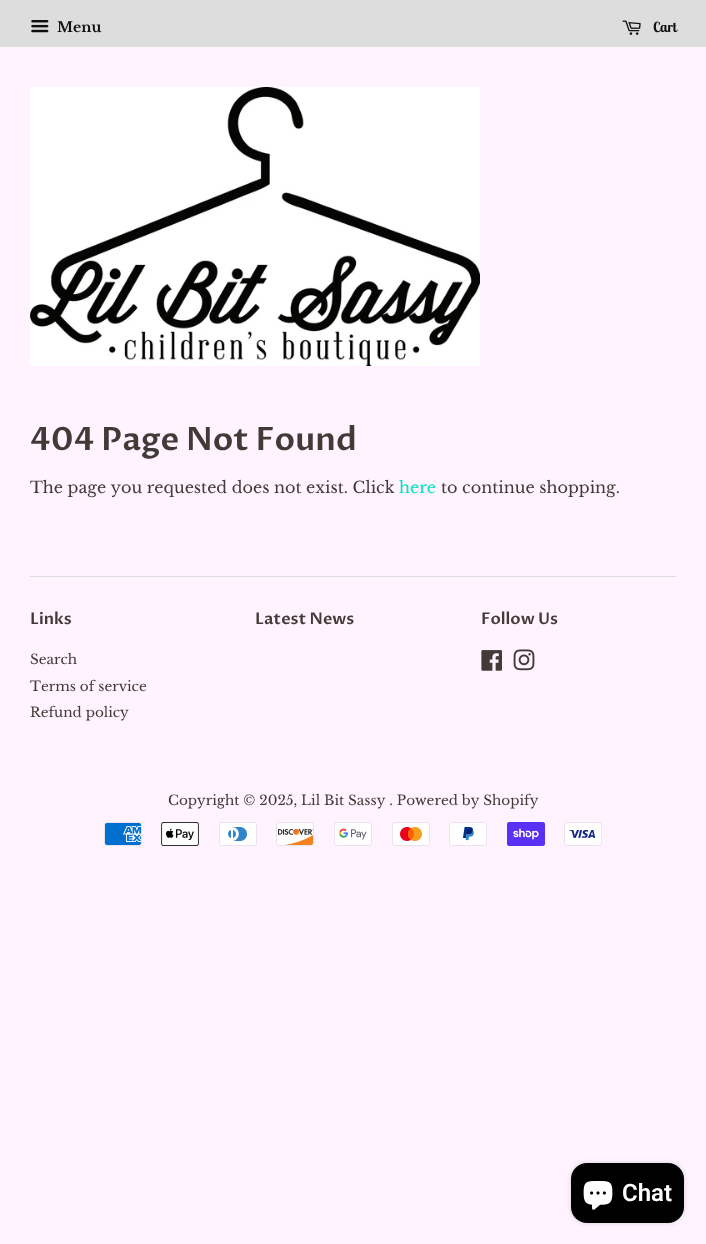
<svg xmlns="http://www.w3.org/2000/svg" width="706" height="1244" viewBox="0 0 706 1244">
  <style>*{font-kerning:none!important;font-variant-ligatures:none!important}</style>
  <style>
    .t1 { font: bold 14px Libre Baskerville; fill: #110f0f; }
    .t2 { font: bold 14px Lobster Two; fill: #110f0f; }
    .t3 { font: 600 32px Proza Libre; fill: #403b37; }
    .t4 { font: 16px Libre Baskerville; fill: #403b37; }
    .t5 { font: 16px Libre Baskerville; fill: #00e4c0; }
    .t6 { font: 600 16px Proza Libre; fill: #403b37; }
    .t7 { font: 13.6px Libre Baskerville; fill: #403b37; }
    .t8 { font: 600 24px Roboto; fill: #fff; }
  </style>
  <rect width="100%" height="100%" fill="#fff3ff"/>
  <rect x="0" y="0" width="706" height="47" fill="#ddd"/>
  <image x="31" y="20" width="18" height="13" href="images/1.png"/>
  <text x="57" y="32" class="t1">Menu</text>
  <image x="622" y="20" width="19" height="15" href="images/2.png"/>
  <text x="653" y="32" class="t2">Cart</text>
  <image x="30" y="87" width="450" height="279" href="images/3.png"/>
  <text x="30" y="450" class="t3">404 Page Not Found</text>
  <text x="30" y="493" class="t4">The page you requested does not exist. Click</text>
  <text x="399" y="493" class="t5">here</text>
  <text x="441" y="493" class="t4">to continue shopping.</text>
  <rect x="30" y="576" width="646" height="1" fill="#ddd"/>
  <text x="30" y="624" class="t6">Links</text>
  <text x="30" y="664" class="t7">Search</text>
  <text x="30" y="691" class="t7">Terms of service</text>
  <text x="30" y="717" class="t7">Refund policy</text>
  <text x="255" y="624" class="t6">Latest News</text>
  <text x="481" y="624" class="t6">Follow Us</text>
  <image x="481" y="650" width="21" height="21" href="images/4.png"/>
  <image x="513" y="649" width="22" height="22" href="images/5.png"/>
  <text x="168" y="805" class="t7">Copyright © 2025, Lil Bit Sassy . Powered by Shopify</text>
  <image x="104" y="822" width="38" height="24" href="images/6.png"/>
  <image x="161" y="822" width="38" height="24" href="images/7.png"/>
  <image x="219" y="822" width="38" height="24" href="images/8.png"/>
  <image x="276" y="822" width="38" height="24" href="images/9.png"/>
  <image x="334" y="822" width="38" height="24" href="images/10.png"/>
  <image x="392" y="822" width="38" height="24" href="images/11.png"/>
  <image x="449" y="822" width="38" height="24" href="images/12.png"/>
  <image x="507" y="822" width="38" height="24" href="images/13.png"/>
  <image x="564" y="822" width="38" height="24" href="images/14.png"/>
  <rect x="571" y="1163" width="113" height="60" rx="16" fill="#00000026" filter="blur(2.5px)"/>
  <rect x="571" y="1163" width="113" height="60" rx="16" fill="#000"/>
  <image x="583" y="1181" width="30" height="29" href="images/15.png"/>
  <text x="622" y="1201" class="t8">Chat</text>
</svg>
